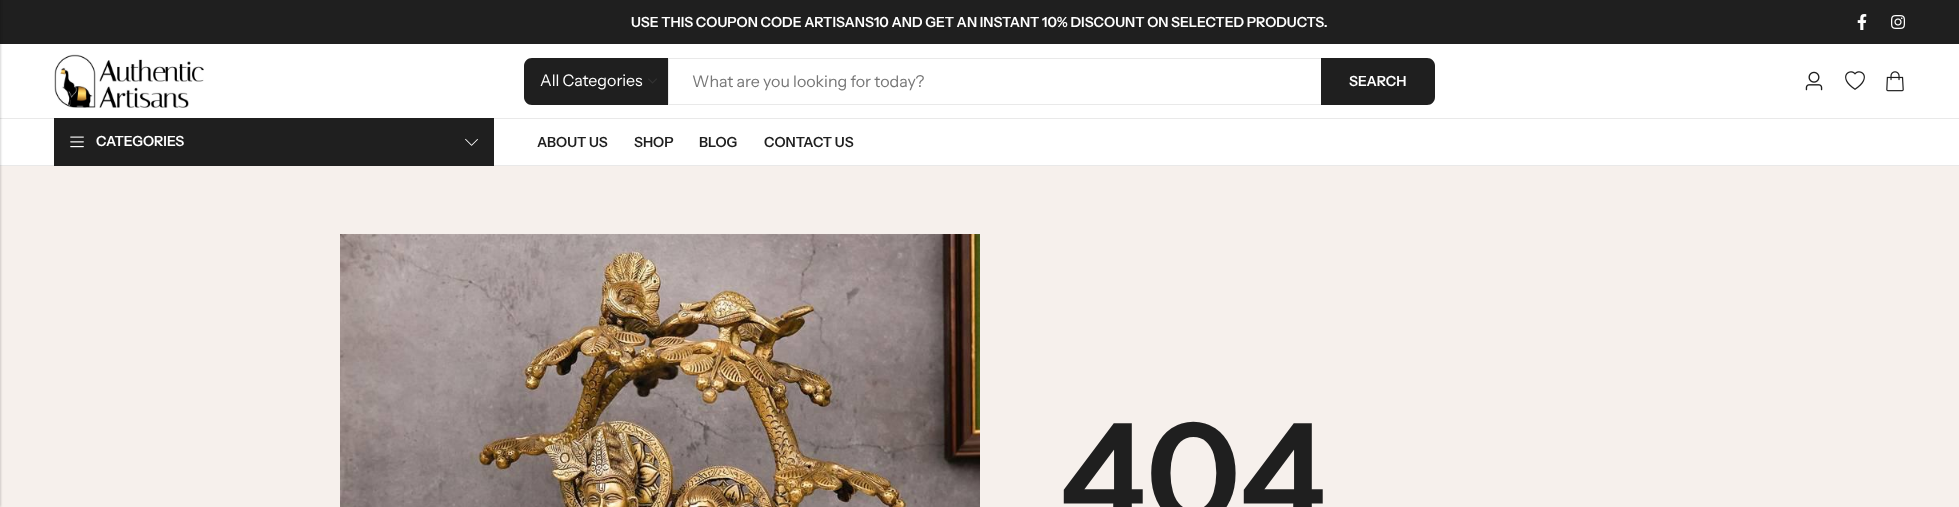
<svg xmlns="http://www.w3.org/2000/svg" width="1959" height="507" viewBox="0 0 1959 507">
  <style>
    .t1 { font: 600 14px Instrument Sans; fill: #fff; }
    .t2 { font: 16px Instrument Sans; fill: #fff; }
    .t3 { font: 16px Instrument Sans; fill: #777; }
    .t4 { font: 600 14px Instrument Sans; fill: #1f1f1f; }
    .t5 { font: 600 140px Instrument Sans; fill: #1f1f1f; }
  </style>
  <rect width="100%" height="100%" fill="#fff"/>
  <rect x="0" y="0" width="1959" height="44" fill="#1f1f1f"/>
  <rect x="0" y="118" width="1959" height="1" fill="#e9e9e9"/>
  <rect x="0" y="165" width="1959" height="1" fill="#e9e9e9"/>
  <rect x="0" y="166" width="1959" height="341" fill="#f6f0ec"/>
  <rect x="-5" y="0" width="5" height="507" fill="#00000026" filter="blur(1.5px)"/>
  <rect x="-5" y="0" width="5" height="507" fill="#00000026" filter="blur(1.5px)"/>
  <text x="631" y="27" class="t1">USE THIS COUPON CODE ARTISANS10 AND GET AN INSTANT 10% DISCOUNT ON SELECTED PRODUCTS.</text>
  <image x="1857" y="14" width="10" height="16" href="images/1.png"/>
  <image x="1891" y="15" width="14" height="14" href="images/2.png"/>
  <image x="54" y="54" width="150" height="54" href="images/3.png"/>
  <rect x="524.5" y="58.5" width="910" height="46" rx="7.5" fill="none" stroke="#e9e9e9"/>
  <path d="M532 58H669V105H532C527.5 105 524 101.5 524 97V66C524 61.5 527.5 58 532 58Z" fill="#1f1f1f"/>
  <image x="648" y="78" width="9" height="6" href="images/4.png"/>
  <rect x="668" y="58" width="1" height="47" fill="#e9e9e9"/>
  <text x="540" y="86" class="t2">All Categories</text>
  <text x="692" y="87" class="t3">What are you looking for today?</text>
  <path d="M1321 58H1427C1431.5 58 1435 61.5 1435 66V97C1435 101.5 1431.5 105 1427 105H1321Z" fill="#1f1f1f"/>
  <text x="1349" y="86" class="t1">SEARCH</text>
  <image x="1805" y="71" width="18" height="20" href="images/5.png"/>
  <image x="1845" y="71" width="20" height="19" href="images/6.png"/>
  <image x="1886" y="71" width="18" height="21" href="images/7.png"/>
  <rect x="54" y="118" width="440" height="48" fill="#1f1f1f"/>
  <image x="70" y="136" width="14" height="12" href="images/8.png"/>
  <text x="96" y="146" class="t1">CATEGORIES</text>
  <image x="465" y="138" width="13" height="8" href="images/9.png"/>
  <text x="537" y="147" class="t4">ABOUT US</text>
  <text x="634" y="147" class="t4">SHOP</text>
  <text x="699" y="147" class="t4">BLOG</text>
  <text x="764" y="147" class="t4">CONTACT US</text>
  <image x="340" y="234" width="640" height="273" href="images/10.png"/>
  <text x="1060" y="524" class="t5">404</text>
</svg>
